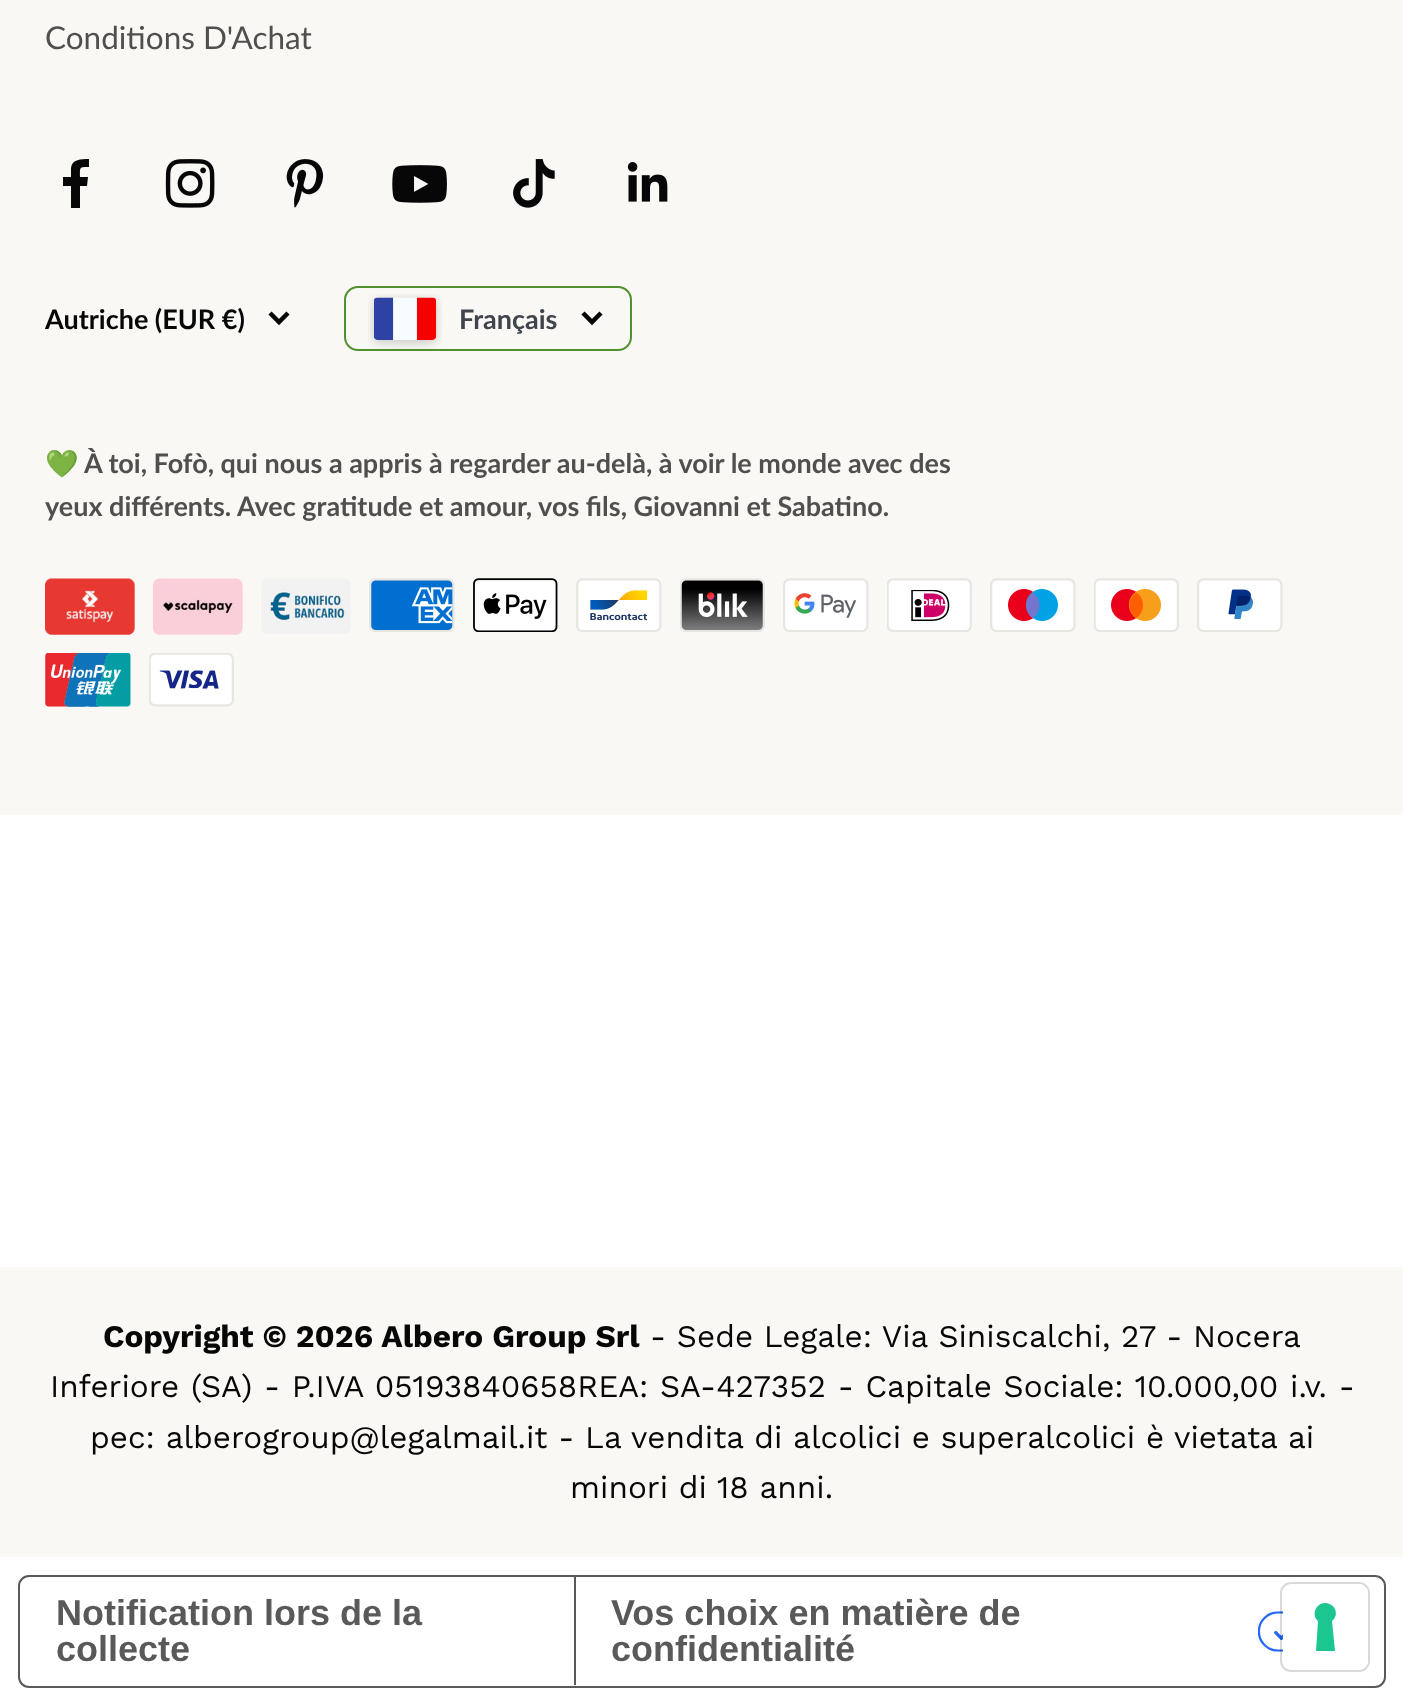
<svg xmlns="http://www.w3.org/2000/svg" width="1403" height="1705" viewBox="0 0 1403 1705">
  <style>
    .t1 { font: 31.5px Lato; fill: #504f4e; }
    .t2 { font: bold 27px Lato; fill: #070707; }
    .t3 { font: bold 27px Lato; fill: #40444d; }
    .t4 { font: bold 27px Noto Color Emoji; fill: #504f4e; }
    .t5 { font: bold 27px Lato; fill: #504f4e; }
    .t6 { font: bold 31.5px Work Sans; fill: #070707; }
    .t7 { font: 31.5px Work Sans; fill: #070707; }
    .t8 { font: bold 36px Liberation Sans; fill: #595959; }
  </style>
  <rect width="100%" height="100%" fill="#fff"/>
  <rect x="0" y="0" width="1403" height="815" fill="#faf8f4"/>
  <text x="45" y="49" class="t1">Conditions D'Achat</text>
  <path d="M71 208V186H63V177H71V168C72 159 81 159 89 159V167C79 167 80 167 80 177H88L87 186H80V208Z" fill="#070707" fill-rule="evenodd"/>
  <image x="165" y="159" width="50" height="49" href="images/1.png"/>
  <image x="286" y="159" width="38" height="49" href="images/2.png"/>
  <image x="392" y="165" width="55" height="38" href="images/3.png"/>
  <image x="513" y="159" width="42" height="49" href="images/4.png"/>
  <image x="627" y="162" width="41" height="40" href="images/5.png"/>
  <text x="45" y="329" class="t2">Autriche (EUR €)</text>
  <path d="M270 313L279 322L288 313" fill="none" stroke="#070707" stroke-width="4.5"/>
  <rect x="345" y="287" width="286" height="63" rx="13" fill="none" stroke="#51902e" stroke-width="2"/>
  <image x="368" y="294" width="74" height="55" href="images/6.png"/>
  <text x="459" y="329" class="t3">Français</text>
  <path d="M583 313L592 322L601 313" fill="none" stroke="#070707" stroke-width="4.5"/>
  <text x="45" y="473" class="t4">💚</text>
  <text x="84" y="473" class="t5">À toi, Fofò, qui nous a appris à regarder au-delà, à voir le monde avec des</text>
  <text x="45" y="516" class="t5">yeux différents. Avec gratitude et amour, vos fils, Giovanni et Sabatino.</text>
  <image x="45" y="578" width="90" height="57" href="images/7.png"/>
  <image x="153" y="578" width="90" height="57" href="images/8.png"/>
  <image x="261" y="578" width="90" height="56" href="images/9.png"/>
  <image x="369" y="578" width="86" height="54" href="images/10.png"/>
  <image x="473" y="578" width="85" height="54" href="images/11.png"/>
  <image x="576" y="578" width="86" height="54" href="images/12.png"/>
  <image x="680" y="578" width="85" height="54" href="images/13.png"/>
  <image x="783" y="578" width="86" height="54" href="images/14.png"/>
  <image x="887" y="578" width="85" height="54" href="images/15.png"/>
  <image x="990" y="578" width="86" height="54" href="images/16.png"/>
  <image x="1094" y="578" width="85" height="54" href="images/17.png"/>
  <image x="1197" y="578" width="86" height="54" href="images/18.png"/>
  <image x="45" y="653" width="86" height="54" href="images/19.png"/>
  <image x="149" y="653" width="85" height="54" href="images/20.png"/>
  <rect x="0" y="1267" width="1403" height="290" fill="#faf8f4"/>
  <text x="103" y="1347" class="t6">Copyright © 2026 Albero Group Srl</text>
  <text x="650" y="1347" class="t7">- Sede Legale: Via Siniscalchi, 27 - Nocera</text>
  <text x="50" y="1397" word-spacing="1" class="t7">Inferiore (SA) - P.IVA 05193840658REA: SA-427352 - Capitale Sociale: 10.000,00 i.v. -</text>
  <text x="90" y="1448" class="t7">pec: alberogroup@legalmail.it - La vendita di alcolici e superalcolici è vietata ai</text>
  <text x="570" y="1498" class="t7">minori di 18 anni.</text>
  <rect x="19" y="1576" width="1366" height="111" rx="10" fill="none" stroke="#595959" stroke-width="2"/>
  <text x="56" y="1625" class="t8">Notification lors de la</text>
  <text x="56" y="1661" class="t8">collecte</text>
  <rect x="574" y="1577" width="2" height="108" fill="#595959"/>
  <text x="611" y="1625" class="t8">Vos choix en matière de</text>
  <image x="1258" y="1611" width="25" height="41" href="images/21.png"/>
  <text x="611" y="1661" class="t8">confidentialité</text>
  <rect x="1281" y="1583" width="88" height="88" rx="10" fill="none" stroke="#00000026" stroke-width="2"/>
  <rect x="1283" y="1584" width="85" height="86" rx="9" fill="#fff"/>
  <path d="M1325 1603C1335 1603 1340 1615 1332 1621L1335 1651H1316L1318 1621C1311 1615 1316 1603 1325 1603Z" fill="#1cc691" fill-rule="evenodd"/>
</svg>
